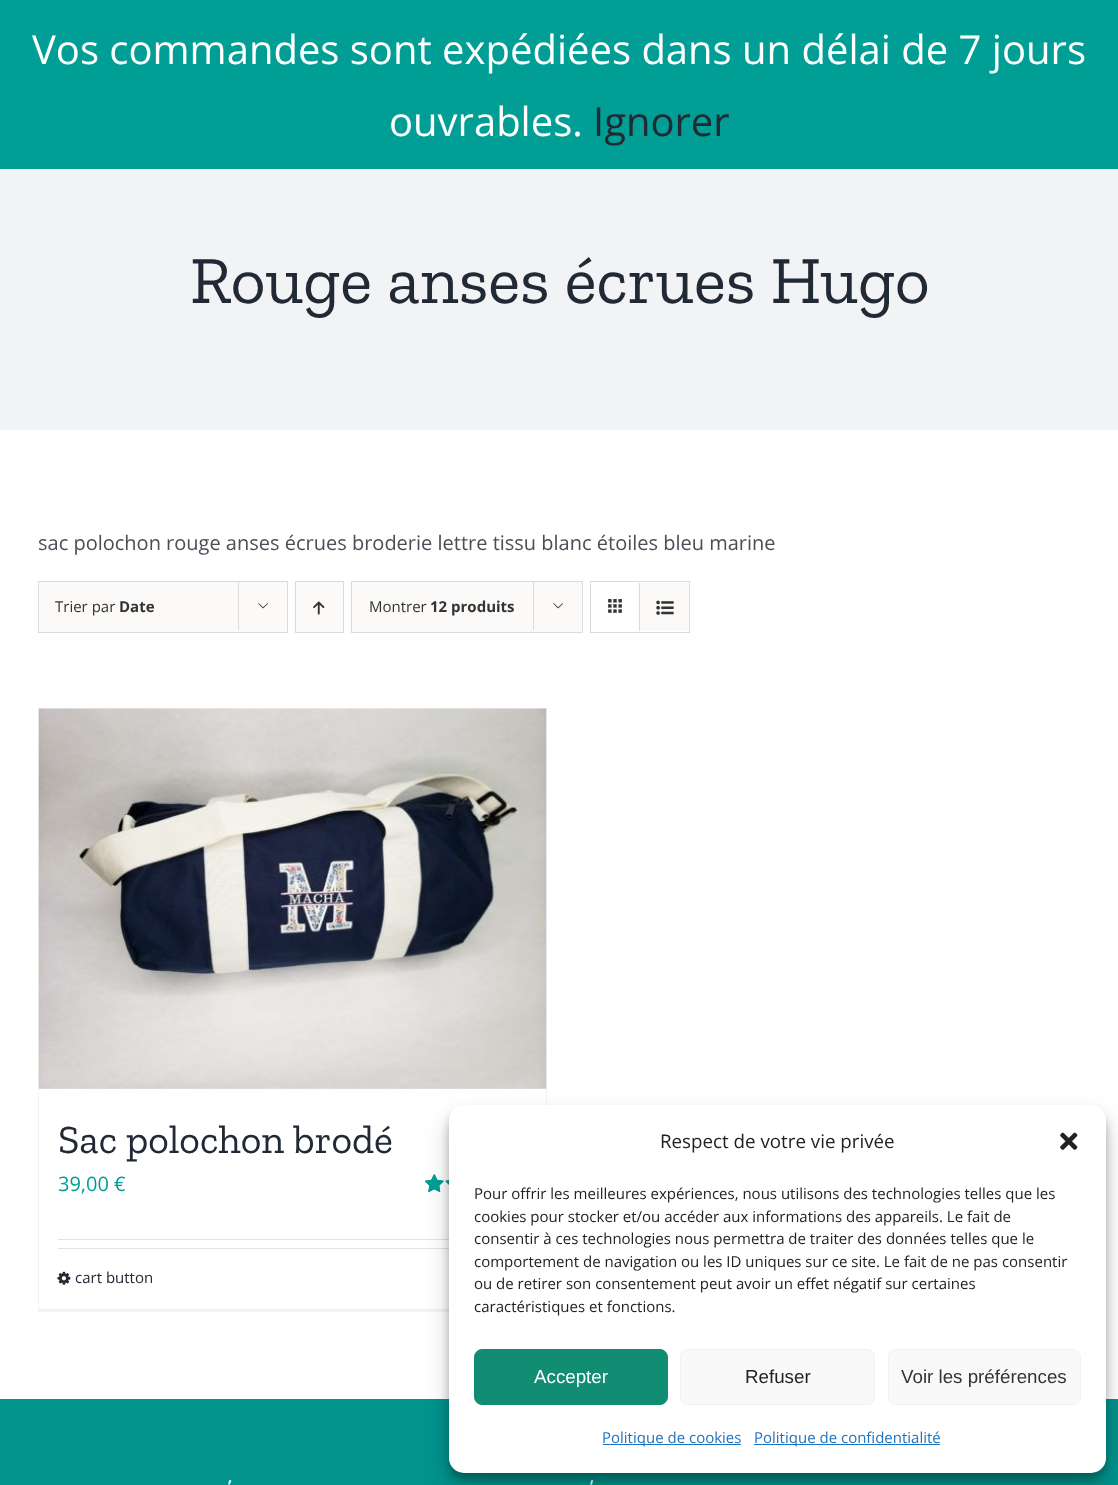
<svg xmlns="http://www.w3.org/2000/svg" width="1118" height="1485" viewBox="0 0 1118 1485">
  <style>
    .t1 { font: 40px Open Sans; fill: #fff; }
    .t2 { font: 40px Open Sans; fill: #212934; }
    .t3 { font: 67.5px Zilla Slab; fill: #212934; }
    .t4 { font: 20px Open Sans; fill: #4a4e57; }
    .t5 { font: 15px Open Sans; fill: #333; }
    .t6 { font: bold 15px Open Sans; fill: #333; }
    .t7 { font: 40px Zilla Slab; fill: #212934; }
    .t8 { font: 20px Open Sans; fill: #019e96; }
    .t9 { font: 15px Open Sans; fill: #212934; }
    .t10 { font: 600 18px Open Sans; fill: #fff; }
    .t11 { font: 18.75px Open Sans; fill: #222; }
    .t12 { font: 15px Open Sans; fill: #222; }
    .t13 { font: 18.75px Liberation Sans; fill: #fff; }
    .t14 { font: 18.75px Liberation Sans; fill: #222; }
    .t15 { font: 18.75px Liberation Sans; fill: #333; }
    .t16 { font: 15px Open Sans; fill: #1e73be; }
  </style>
  <rect width="100%" height="100%" fill="#fff"/>
  <rect x="0" y="0" width="1118" height="169" fill="#019e96"/>
  <text x="32" y="64" class="t1">Vos commandes sont expédiées dans un délai de 7 jours</text>
  <text x="389" y="136" class="t1">ouvrables.</text>
  <text x="593" y="136" class="t2">Ignorer</text>
  <rect x="0" y="169" width="1118" height="261" fill="#f2f3f5"/>
  <text x="190" y="303" class="t3">Rouge anses écrues Hugo</text>
  <text x="38" y="550" class="t4">sac polochon rouge anses écrues broderie lettre tissu blanc étoiles bleu marine</text>
  <rect x="38.5" y="581.5" width="249" height="51" fill="#fbfaf9" stroke="#dbdbdb"/>
  <text x="55" y="612" class="t5">Trier par</text>
  <text x="119" y="612" class="t6">Date</text>
  <rect x="238" y="581" width="1" height="49" fill="#dbdbdb"/>
  <image x="258" y="603" width="10" height="6" href="images/1.png"/>
  <rect x="295.5" y="581.5" width="48" height="51" fill="#fbfaf9" stroke="#dbdbdb"/>
  <image x="313" y="601" width="12" height="14" href="images/2.png"/>
  <rect x="351.5" y="581.5" width="231" height="51" fill="#fbfaf9" stroke="#dbdbdb"/>
  <text x="369" y="612" class="t5">Montrer</text>
  <text x="430" y="612" class="t6">12 produits</text>
  <rect x="533" y="581" width="1" height="49" fill="#dbdbdb"/>
  <image x="553" y="603" width="10" height="6" href="images/1.png"/>
  <rect x="590.5" y="581.5" width="99" height="51" fill="none" stroke="#dbdbdb"/>
  <rect x="639" y="583" width="1" height="48" fill="#dbdbdb"/>
  <image x="608" y="599" width="14" height="14" href="images/3.png"/>
  <rect x="640" y="583" width="49" height="48" fill="#fbfaf9"/>
  <image x="656" y="600" width="18" height="15" href="images/4.png"/>
  <rect x="38" y="708" width="510" height="1" fill="#f2f3f5"/>
  <rect x="546" y="708" width="1" height="397" fill="#f2f3f5"/>
  <rect x="38" y="1309" width="411" height="3" fill="#f2f3f5"/>
  <rect x="38" y="708" width="1" height="603" fill="#f2f3f5"/>
  <rect x="39" y="1088" width="507" height="1" fill="#e2e2e2"/>
  <image x="38" y="708" width="509" height="381" href="images/5.png"/>
  <text x="58" y="1153" class="t7">Sac polochon brodé</text>
  <text x="58" y="1191" class="t8">39,00 €</text>
  <image x="425" y="1174" width="24" height="18" href="images/6.png"/>
  <image x="425" y="1174" width="24" height="18" href="images/7.png"/>
  <rect x="58" y="1239" width="391" height="1" fill="#e2e2e2"/>
  <rect x="58" y="1248" width="391" height="1" fill="#e2e2e2"/>
  <image x="57" y="1271" width="14" height="14" href="images/8.png"/>
  <text x="75" y="1283" class="t9">cart button</text>
  <rect x="0" y="1399" width="1118" height="86" fill="#01938c"/>
  <text x="228" y="1493" class="t10">’</text>
  <text x="590" y="1493" class="t10">’</text>
  <rect x="449" y="1113" width="657" height="367" rx="15" fill="#0000003b" filter="blur(4px)"/>
  <rect x="449" y="1118" width="657" height="367" rx="15" fill="#00000030" filter="blur(12.5px)"/>
  <rect x="449" y="1105" width="657" height="368" rx="15" fill="#fff"/>
  <text x="660" y="1148" class="t11">Respect de votre vie privée</text>
  <image x="1060" y="1132" width="18" height="18" href="images/9.png"/>
  <text x="474" y="1199" class="t12">Pour offrir les meilleures expériences, nous utilisons des technologies telles que les</text>
  <text x="474" y="1222" class="t12">cookies pour stocker et/ou accéder aux informations des appareils. Le fait de</text>
  <text x="474" y="1244" class="t12">consentir à ces technologies nous permettra de traiter des données telles que le</text>
  <text x="474" y="1267" class="t12">comportement de navigation ou les ID uniques sur ce site. Le fait de ne pas consentir</text>
  <text x="474" y="1289" class="t12">ou de retirer son consentement peut avoir un effet négatif sur certaines</text>
  <text x="474" y="1312" class="t12">caractéristiques et fonctions.</text>
  <rect x="474.5" y="1349.5" width="193" height="55" rx="7.5" fill="#108d72" stroke="#108d72"/>
  <text x="534" y="1383" class="t13">Accepter</text>
  <rect x="680.5" y="1349.5" width="194" height="55" rx="7.5" fill="#f9f9f9" stroke="#f2f2f2"/>
  <text x="745" y="1383" class="t14">Refuser</text>
  <rect x="888.5" y="1349.5" width="192" height="55" rx="7.5" fill="#f9f9f9" stroke="#f2f2f2"/>
  <text x="901" y="1383" class="t15">Voir les préférences</text>
  <rect x="603" y="1444" width="138" height="1" fill="#1e73be"/>
  <text x="602" y="1443" class="t16">Politique de cookies</text>
  <rect x="754" y="1444" width="186" height="1" fill="#1e73be"/>
  <text x="754" y="1443" class="t16">Politique de confidentialité</text>
</svg>
